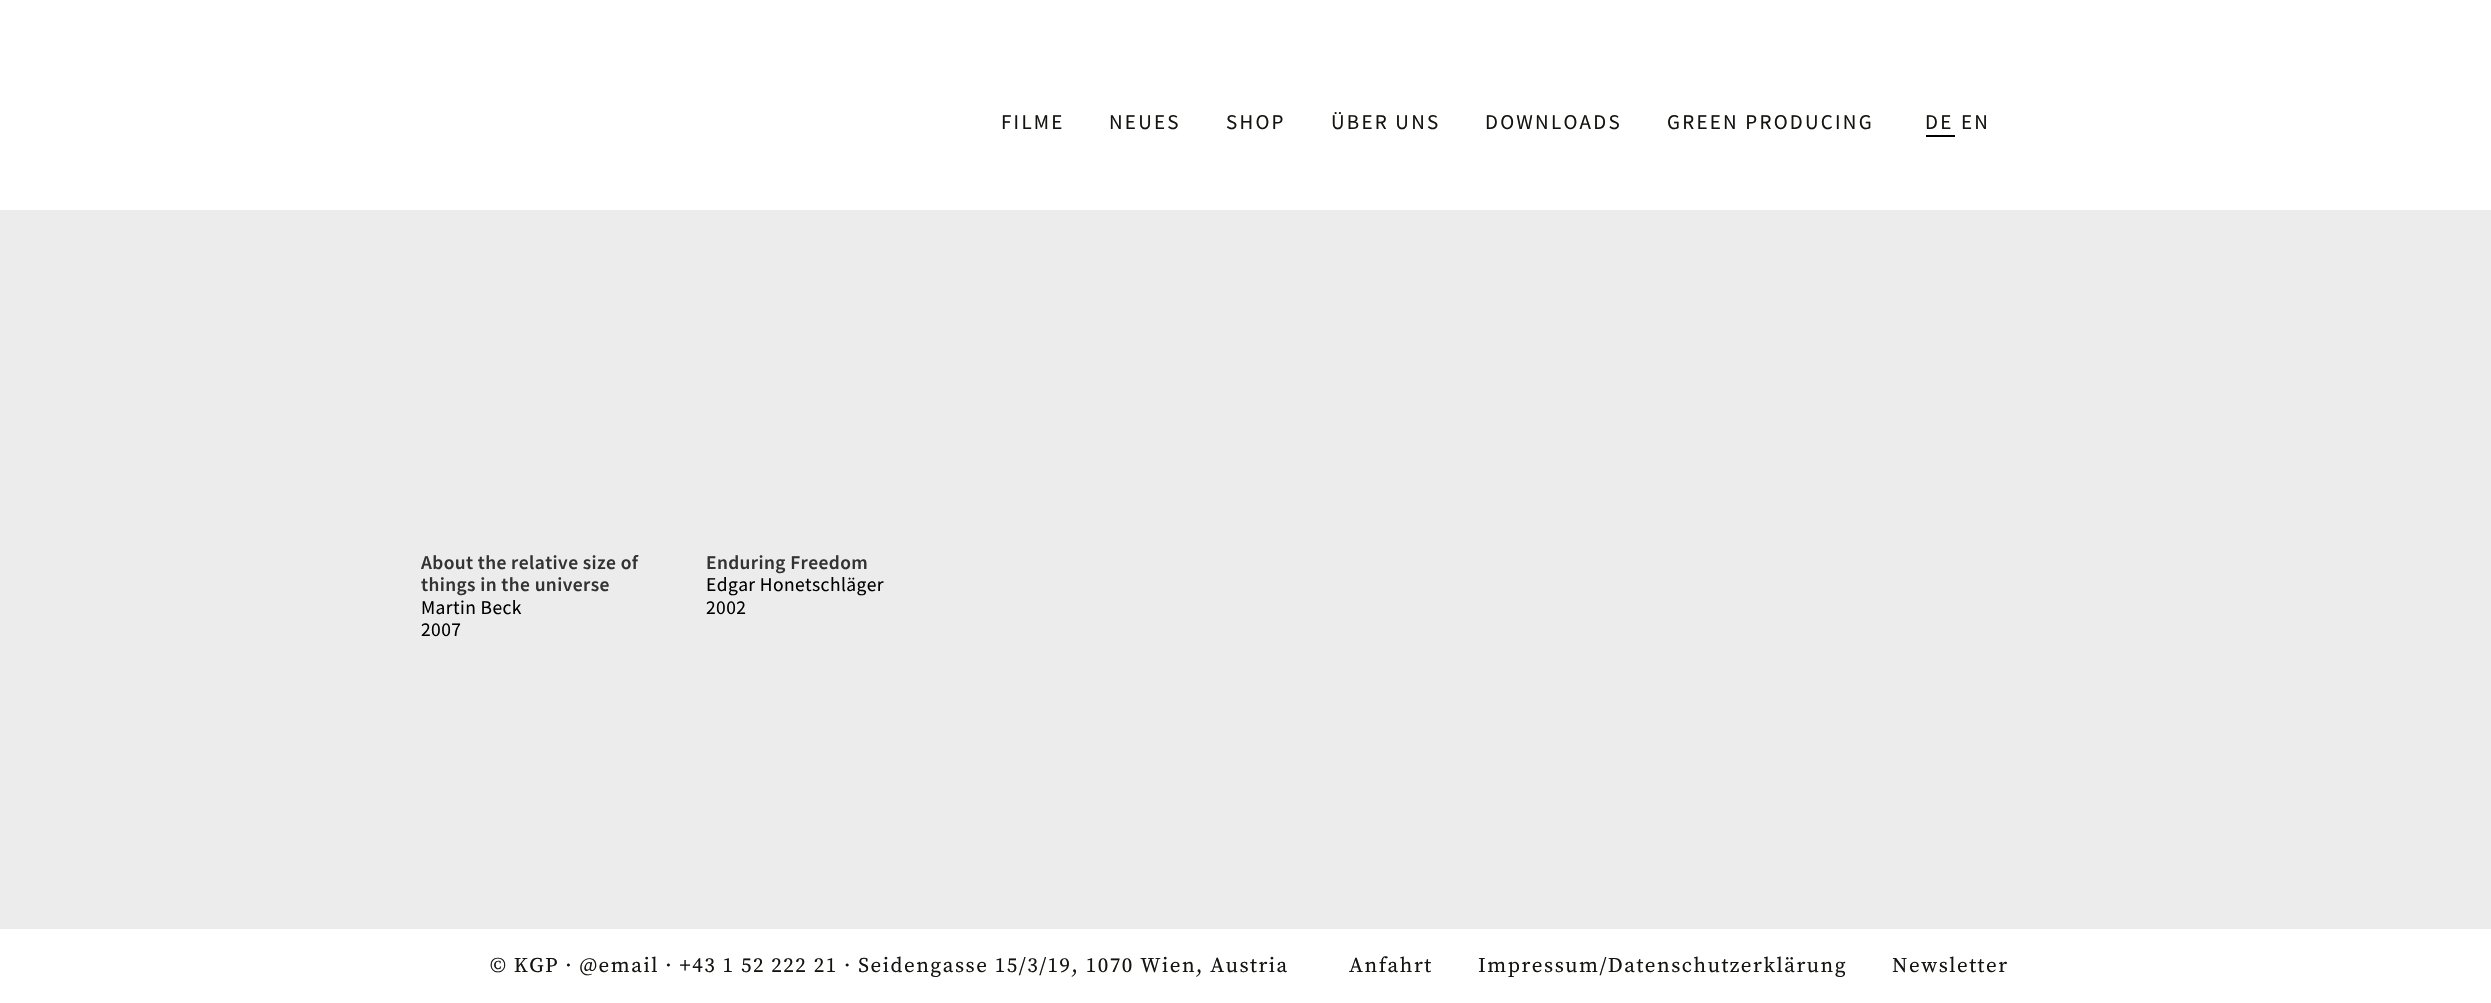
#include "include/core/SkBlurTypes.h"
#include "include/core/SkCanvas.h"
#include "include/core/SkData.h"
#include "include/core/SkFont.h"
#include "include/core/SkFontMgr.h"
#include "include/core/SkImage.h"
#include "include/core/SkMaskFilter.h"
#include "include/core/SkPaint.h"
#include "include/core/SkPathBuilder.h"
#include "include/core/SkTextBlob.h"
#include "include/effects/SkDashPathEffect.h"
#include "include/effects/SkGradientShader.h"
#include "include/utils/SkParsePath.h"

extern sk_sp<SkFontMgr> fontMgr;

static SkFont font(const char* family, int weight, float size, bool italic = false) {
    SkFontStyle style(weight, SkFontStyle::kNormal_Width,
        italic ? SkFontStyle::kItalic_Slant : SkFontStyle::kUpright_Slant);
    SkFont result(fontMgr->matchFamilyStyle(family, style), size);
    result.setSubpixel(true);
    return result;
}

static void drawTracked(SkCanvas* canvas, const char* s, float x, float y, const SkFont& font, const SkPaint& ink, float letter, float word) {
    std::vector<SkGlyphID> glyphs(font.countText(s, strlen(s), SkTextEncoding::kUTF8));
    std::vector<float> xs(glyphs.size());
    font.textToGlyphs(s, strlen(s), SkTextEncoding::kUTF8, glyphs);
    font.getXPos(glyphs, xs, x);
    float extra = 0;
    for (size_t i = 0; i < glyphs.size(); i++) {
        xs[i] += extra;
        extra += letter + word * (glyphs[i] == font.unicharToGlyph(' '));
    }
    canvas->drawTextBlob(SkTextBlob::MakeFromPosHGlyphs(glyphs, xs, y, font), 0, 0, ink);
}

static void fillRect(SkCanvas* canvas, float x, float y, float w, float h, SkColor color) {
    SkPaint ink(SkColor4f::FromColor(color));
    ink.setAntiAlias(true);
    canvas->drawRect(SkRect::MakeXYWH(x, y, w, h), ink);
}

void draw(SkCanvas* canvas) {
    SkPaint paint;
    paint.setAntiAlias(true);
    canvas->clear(0xFFECECEC);
    fillRect(canvas, 0, 0, 2491, 210, 0xFFFFFFFF);
    SkFont font1 = font("Source Sans Pro", 400, 21);
    paint.setColor(0xFF141411);
    drawTracked(canvas, "FILME", 1001, 129, font1, paint, 2.25f, 0);
    drawTracked(canvas, "NEUES", 1109, 129, font1, paint, 2.25f, 0);
    drawTracked(canvas, "SHOP", 1226, 129, font1, paint, 2.25f, 0);
    drawTracked(canvas, "ÜBER UNS", 1331, 129, font1, paint, 2.25f, 0);
    drawTracked(canvas, "DOWNLOADS", 1485, 129, font1, paint, 2.25f, 0);
    drawTracked(canvas, "GREEN PRODUCING", 1667, 129, font1, paint, 2.25f, 0);
    drawTracked(canvas, "DE", 1925, 129, font1, paint, 2.25f, 0);
    fillRect(canvas, 1926, 135, 29, 2, 0xFF000000);
    drawTracked(canvas, "EN", 1961, 129, font1, paint, 2.25f, 0);
    SkFont font2 = font("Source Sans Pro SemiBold", 600, 19.5f);
    paint.setColor(0xFF333333);
    drawTracked(canvas, "About the relative size of", 421, 569, font2, paint, 0.4f, 0);
    drawTracked(canvas, "things in the universe", 421, 591, font2, paint, 0.4f, 0);
    SkFont font3 = font("Source Sans Pro", 400, 19.5f);
    paint.setColor(0xFF000000);
    drawTracked(canvas, "Martin Beck", 421, 614, font3, paint, 0.4f, 0);
    drawTracked(canvas, "2007", 421, 636, font3, paint, 0.4f, 0);
    paint.setColor(0xFF333333);
    drawTracked(canvas, "Enduring Freedom", 706, 569, font2, paint, 0.4f, 0);
    paint.setColor(0xFF000000);
    drawTracked(canvas, "Edgar Honetschläger", 706, 591, font3, paint, 0.4f, 0);
    drawTracked(canvas, "2002", 706, 614, font3, paint, 0.4f, 0);
    fillRect(canvas, 0, 929, 2491, 74, 0xFFFFFFFF);
    SkFont font4 = font("Source Serif Pro", 400, 21);
    paint.setColor(0xFF141411);
    drawTracked(canvas, "© KGP · @email · +43 1 52 222 21 · Seidengasse 15/3/19, 1070 Wien, Austria", 490, 972, font4, paint, 1.5f, 0);
    drawTracked(canvas, "Anfahrt", 1349, 972, font4, paint, 1.5f, 0);
    drawTracked(canvas, "Impressum/Datenschutzerklärung", 1478, 972, font4, paint, 1.5f, 0);
    drawTracked(canvas, "Newsletter", 1892, 972, font4, paint, 1.5f, 0);
}
